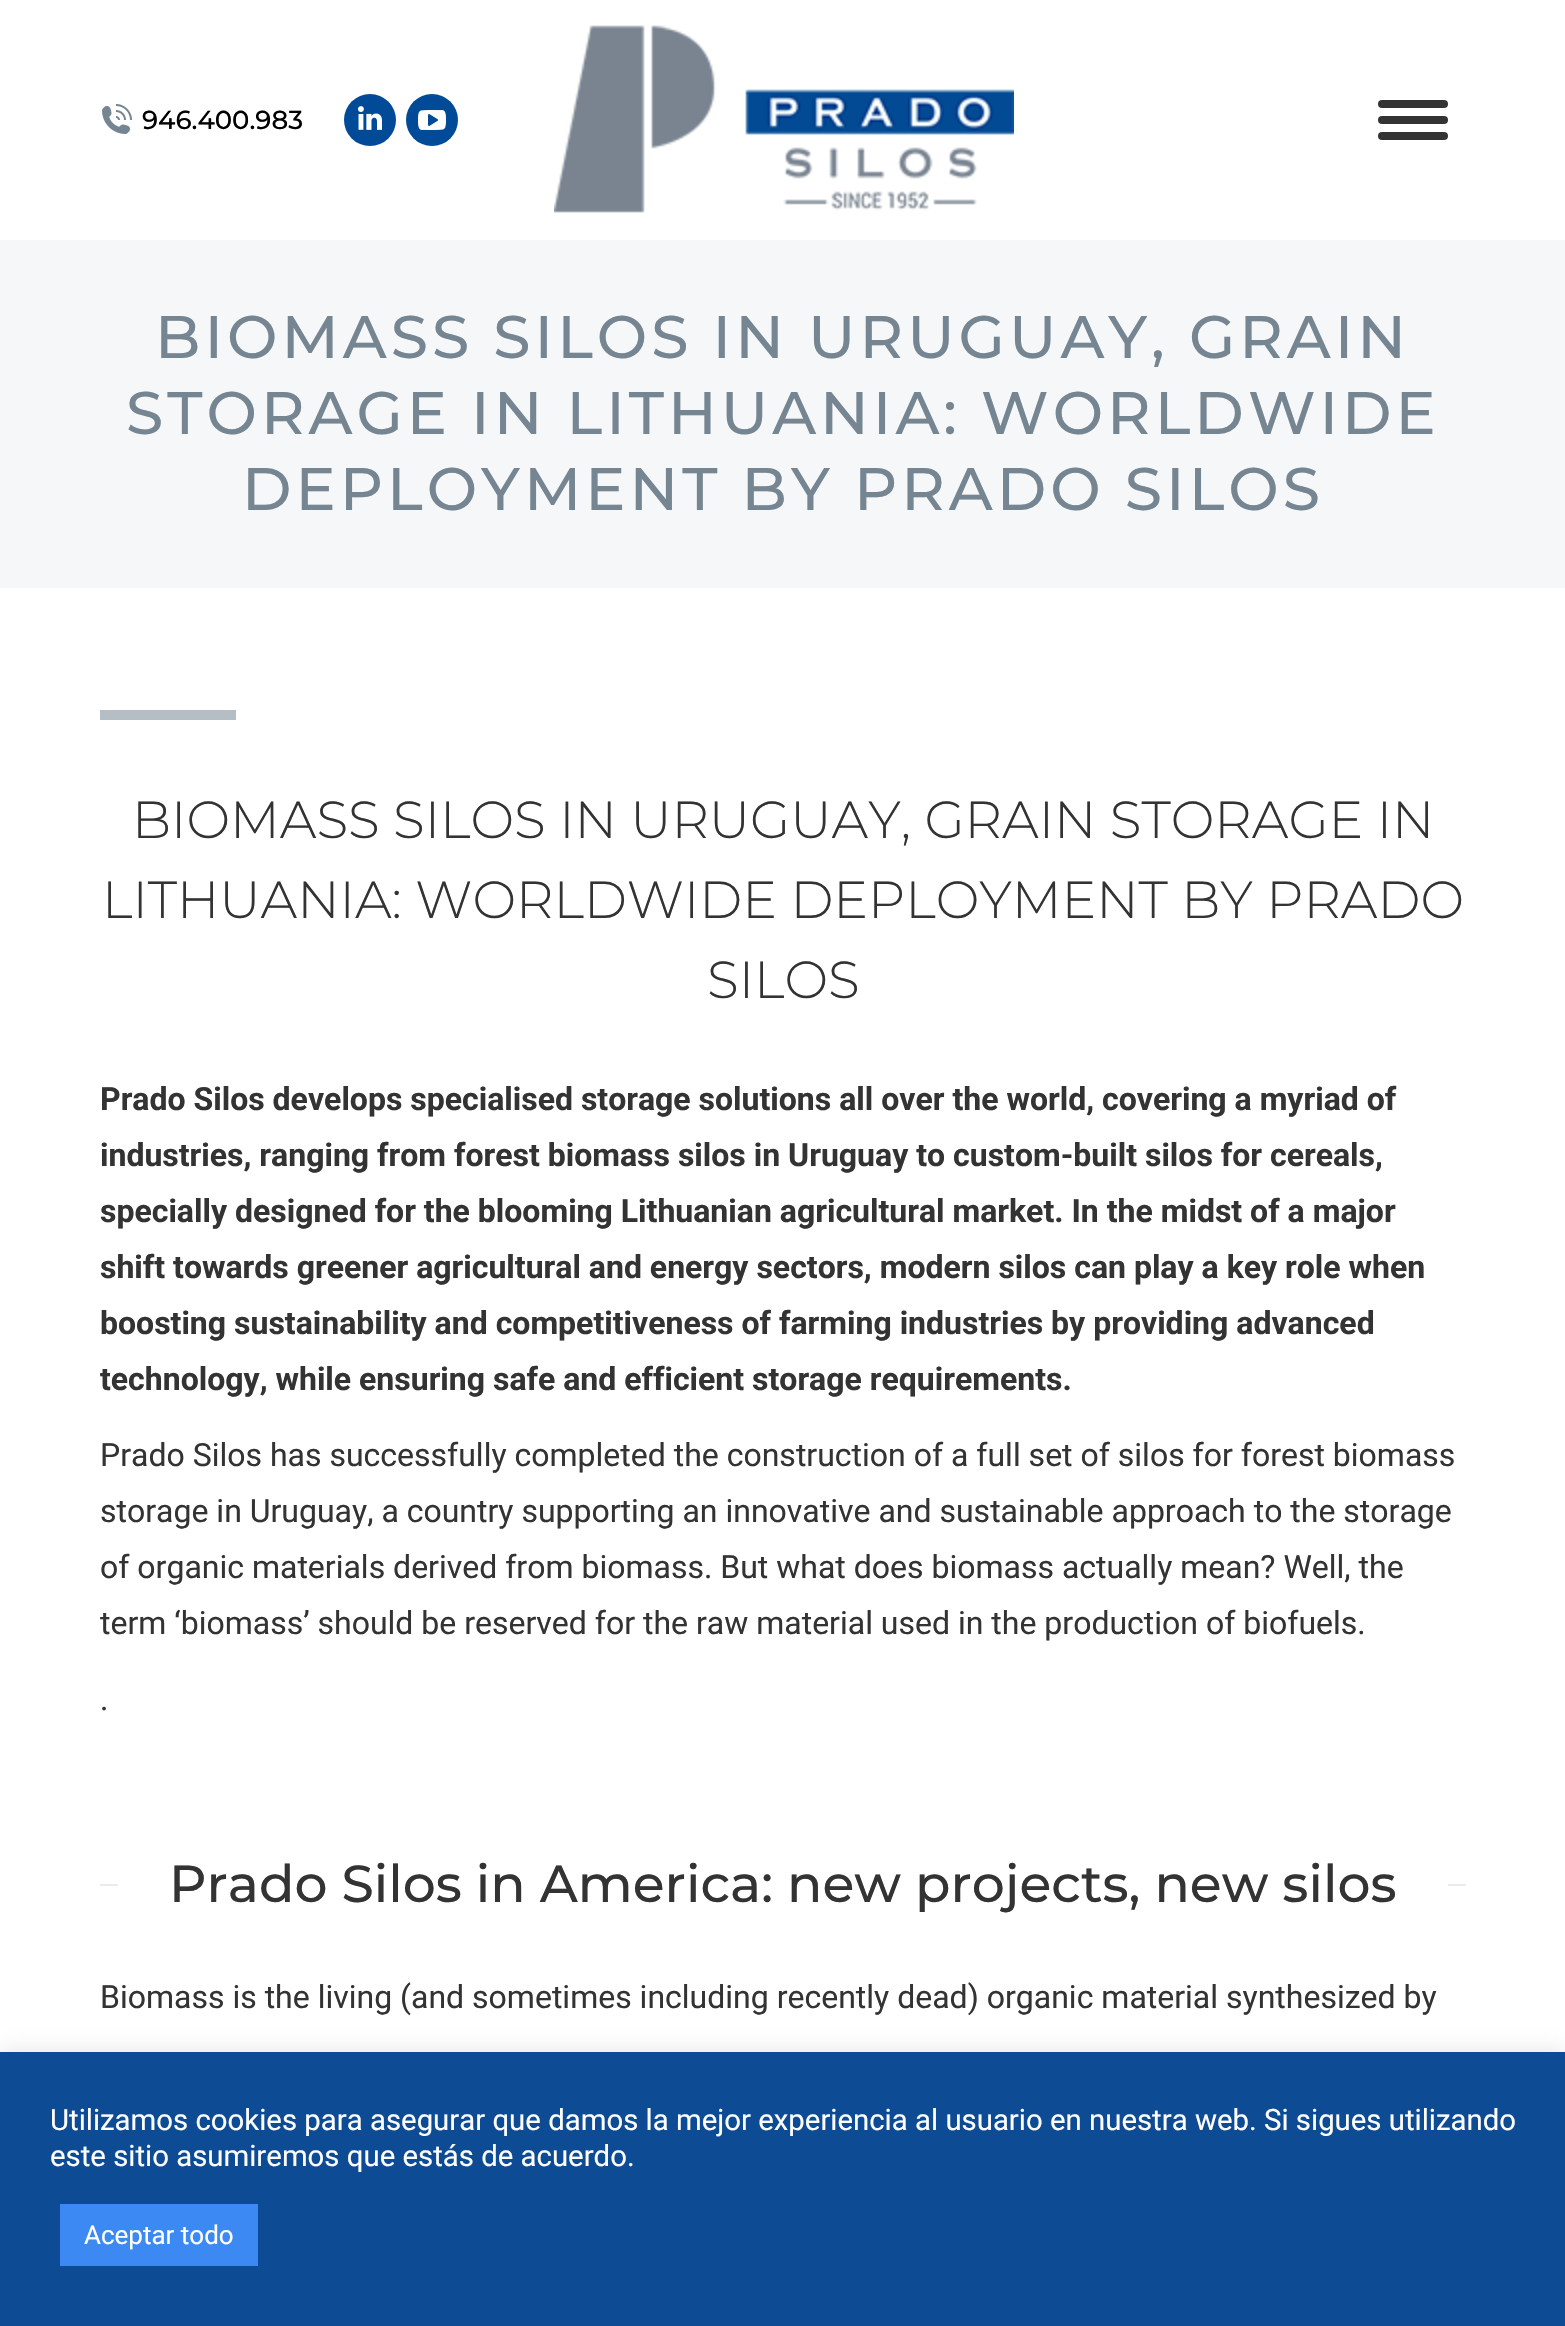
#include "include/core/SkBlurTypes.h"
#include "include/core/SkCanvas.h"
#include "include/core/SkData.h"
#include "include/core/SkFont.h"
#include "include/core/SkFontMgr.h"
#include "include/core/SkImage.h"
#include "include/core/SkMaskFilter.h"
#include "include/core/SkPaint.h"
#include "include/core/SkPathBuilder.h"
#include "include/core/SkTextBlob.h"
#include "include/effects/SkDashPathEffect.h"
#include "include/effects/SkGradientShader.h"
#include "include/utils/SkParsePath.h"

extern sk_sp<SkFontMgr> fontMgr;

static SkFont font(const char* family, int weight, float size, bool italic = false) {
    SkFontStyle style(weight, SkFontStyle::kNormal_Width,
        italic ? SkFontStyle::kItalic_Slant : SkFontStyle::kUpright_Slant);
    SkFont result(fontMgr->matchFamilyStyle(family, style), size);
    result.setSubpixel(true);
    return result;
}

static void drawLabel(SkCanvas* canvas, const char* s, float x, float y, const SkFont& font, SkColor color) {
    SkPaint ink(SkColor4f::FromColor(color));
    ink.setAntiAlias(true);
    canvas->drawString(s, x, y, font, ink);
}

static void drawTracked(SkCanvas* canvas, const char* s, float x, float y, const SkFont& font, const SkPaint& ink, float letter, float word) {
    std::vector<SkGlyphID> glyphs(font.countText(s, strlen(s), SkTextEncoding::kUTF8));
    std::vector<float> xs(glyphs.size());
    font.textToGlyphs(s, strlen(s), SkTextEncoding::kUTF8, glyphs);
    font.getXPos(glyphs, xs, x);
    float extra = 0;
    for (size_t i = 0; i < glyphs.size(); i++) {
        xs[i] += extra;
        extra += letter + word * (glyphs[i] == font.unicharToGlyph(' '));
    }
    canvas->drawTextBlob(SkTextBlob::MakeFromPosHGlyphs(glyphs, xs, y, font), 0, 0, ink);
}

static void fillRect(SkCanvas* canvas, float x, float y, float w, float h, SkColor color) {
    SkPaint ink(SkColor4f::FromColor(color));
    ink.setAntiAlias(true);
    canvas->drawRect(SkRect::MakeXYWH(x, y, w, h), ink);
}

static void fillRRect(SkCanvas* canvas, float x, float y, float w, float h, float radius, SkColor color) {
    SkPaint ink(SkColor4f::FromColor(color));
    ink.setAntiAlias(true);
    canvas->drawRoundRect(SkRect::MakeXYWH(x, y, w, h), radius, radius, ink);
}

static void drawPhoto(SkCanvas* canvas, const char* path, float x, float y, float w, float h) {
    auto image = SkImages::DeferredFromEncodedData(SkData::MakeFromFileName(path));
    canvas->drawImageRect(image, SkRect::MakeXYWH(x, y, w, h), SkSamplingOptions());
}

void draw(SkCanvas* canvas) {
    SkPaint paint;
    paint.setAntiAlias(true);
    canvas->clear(0xFFFFFFFF);
    drawPhoto(canvas, "assets/img1.png", 102, 104, 30, 30);
    SkFont font1 = font("Montserrat", 500, 26);
    drawLabel(canvas, "946.400.983", 142, 129, font1, 0xFF000000);
    paint.setColor(0xFF004A98);
    canvas->drawCircle(370, 120, 26, paint);
    drawPhoto(canvas, "assets/img2.png", 358, 106, 24, 24);
    canvas->drawCircle(432, 120, 26, paint);
    drawPhoto(canvas, "assets/img3.png", 418, 110, 28, 20);
    drawPhoto(canvas, "assets/img4.png", 554, 25, 460, 188);
    fillRRect(canvas, 1378, 100, 70, 8, 4, 0xFF333333);
    fillRRect(canvas, 1378, 116, 70, 8, 4, 0xFF333333);
    fillRRect(canvas, 1378, 132, 70, 8, 4, 0xFF333333);
    fillRect(canvas, 0, 240, 1565, 348, 0xFFF6F7F8);
    SkFont font2 = font("Montserrat", 500, 60);
    paint.setColor(0xFF758592);
    drawTracked(canvas, "BIOMASS SILOS IN URUGUAY, GRAIN", 155, 358, font2, paint, 4, 0);
    drawTracked(canvas, "STORAGE IN LITHUANIA: WORLDWIDE", 126, 434, font2, paint, 4, 0);
    drawTracked(canvas, "DEPLOYMENT BY PRADO SILOS", 242, 510, font2, paint, 4, 0);
    fillRect(canvas, 100, 710, 136, 10, 0xFFB6BEC5);
    SkFont font3 = font("Montserrat", 300, 52);
    drawLabel(canvas, "BIOMASS SILOS IN URUGUAY, GRAIN STORAGE IN", 132, 838, font3, 0xFF333333);
    drawLabel(canvas, "LITHUANIA: WORLDWIDE DEPLOYMENT BY PRADO", 102, 918, font3, 0xFF333333);
    drawLabel(canvas, "SILOS", 707, 998, font3, 0xFF333333);
    SkFont font4 = font("Roboto", 700, 32);
    drawLabel(canvas, "Prado Silos develops specialised storage solutions all over the world, covering a myriad of", 100, 1110, font4, 0xFF333333);
    drawLabel(canvas, "industries, ranging from forest biomass silos in Uruguay to custom-built silos for cereals,", 100, 1166, font4, 0xFF333333);
    drawLabel(canvas, "specially designed for the blooming Lithuanian agricultural market. In the midst of a major", 100, 1222, font4, 0xFF333333);
    drawLabel(canvas, "shift towards greener agricultural and energy sectors, modern silos can play a key role when", 100, 1278, font4, 0xFF333333);
    drawLabel(canvas, "boosting sustainability and competitiveness of farming industries by providing advanced", 100, 1334, font4, 0xFF333333);
    drawLabel(canvas, "technology, while ensuring safe and efficient storage requirements.", 100, 1390, font4, 0xFF333333);
    SkFont font5 = font("Roboto", 400, 32);
    drawLabel(canvas, "Prado Silos has successfully completed the construction of a full set of silos for forest biomass", 100, 1466, font5, 0xFF333333);
    drawLabel(canvas, "storage in Uruguay, a country supporting an innovative and sustainable approach to the storage", 100, 1522, font5, 0xFF333333);
    drawLabel(canvas, "of organic materials derived from biomass. But what does biomass actually mean? Well, the", 100, 1578, font5, 0xFF333333);
    drawLabel(canvas, "term ‘biomass’ should be reserved for the raw material used in the production of biofuels.", 100, 1634, font5, 0xFF333333);
    drawLabel(canvas, ".", 100, 1710, font5, 0xFF333333);
    fillRect(canvas, 100, 1884, 18, 2, 0xFFEBEBEB);
    SkFont font6 = font("Montserrat", 500, 52);
    drawLabel(canvas, "Prado Silos in America: new projects, new silos", 169, 1902, font6, 0xFF333333);
    fillRect(canvas, 1448, 1884, 18, 2, 0xFFEBEBEB);
    drawLabel(canvas, "Biomass is the living (and sometimes including recently dead) organic material synthesized by", 100, 2008, font5, 0xFF333333);
    paint.setColor(0x4DACABAB);
    paint.setMaskFilter(SkMaskFilter::MakeBlur(kNormal_SkBlurStyle, 10));
    canvas->drawRect(SkRect::MakeXYWH(0, 2050, 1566, 274), paint);
    paint.setMaskFilter(nullptr);
    fillRect(canvas, 0, 2052, 1565, 274, 0xFF0D4B94);
    SkFont font7 = font("Roboto", 400, 29.35f);
    drawLabel(canvas, "Utilizamos cookies para asegurar que damos la mejor experiencia al usuario en nuestra web. Si sigues utilizando", 50, 2130, font7, 0xFFFFFFFF);
    drawLabel(canvas, "este sitio asumiremos que estás de acuerdo.", 50, 2166, font7, 0xFFFFFFFF);
    fillRect(canvas, 60, 2204, 198, 62, 0xFF3D89F4);
    SkFont font8 = font("Roboto", 400, 26);
    drawLabel(canvas, "Aceptar todo", 84, 2244, font8, 0xFFFFFFFF);
}
